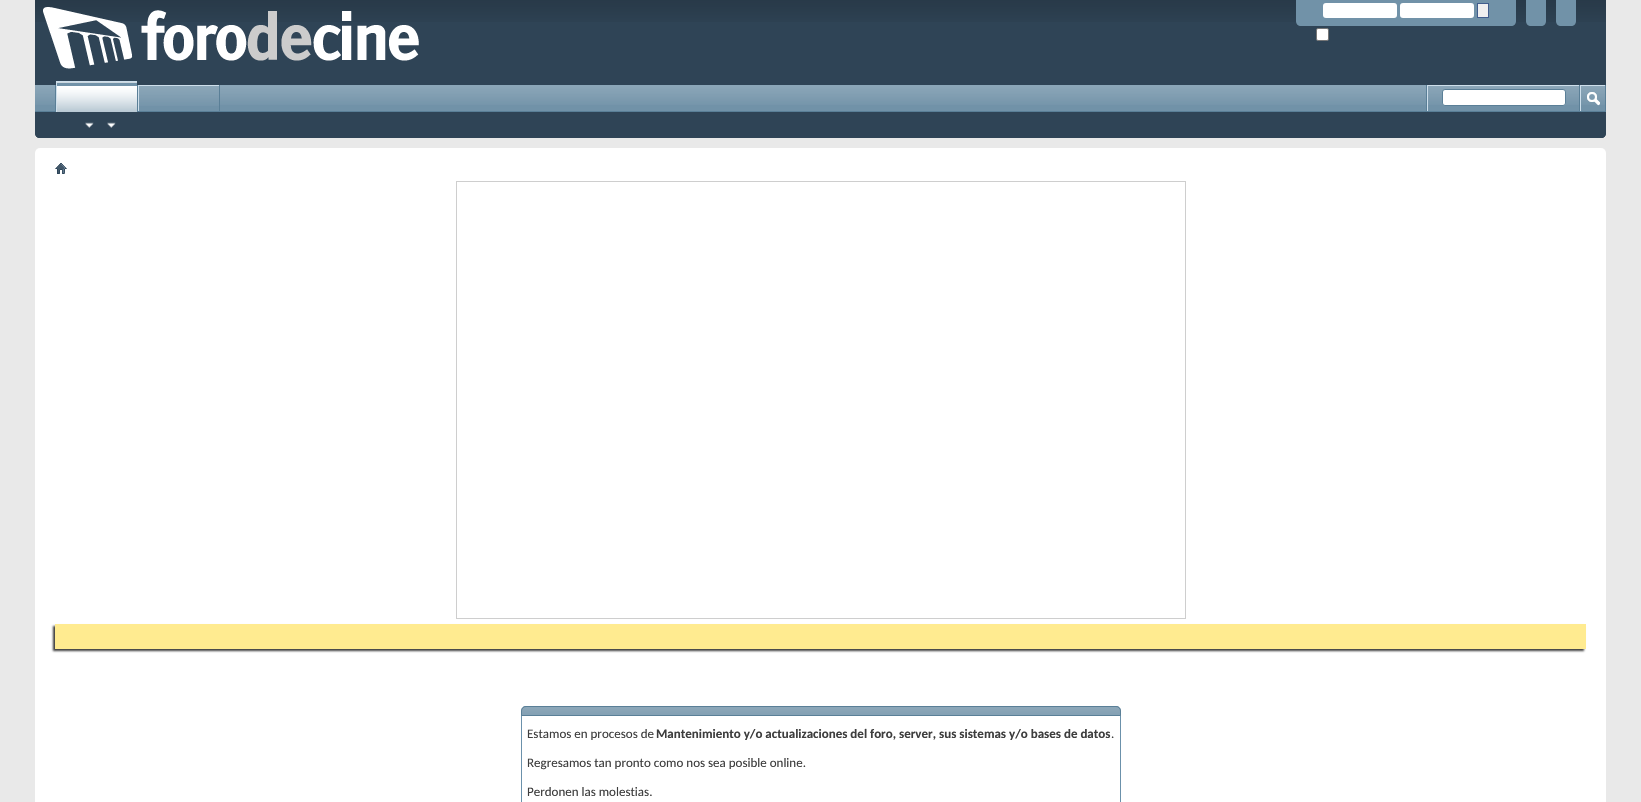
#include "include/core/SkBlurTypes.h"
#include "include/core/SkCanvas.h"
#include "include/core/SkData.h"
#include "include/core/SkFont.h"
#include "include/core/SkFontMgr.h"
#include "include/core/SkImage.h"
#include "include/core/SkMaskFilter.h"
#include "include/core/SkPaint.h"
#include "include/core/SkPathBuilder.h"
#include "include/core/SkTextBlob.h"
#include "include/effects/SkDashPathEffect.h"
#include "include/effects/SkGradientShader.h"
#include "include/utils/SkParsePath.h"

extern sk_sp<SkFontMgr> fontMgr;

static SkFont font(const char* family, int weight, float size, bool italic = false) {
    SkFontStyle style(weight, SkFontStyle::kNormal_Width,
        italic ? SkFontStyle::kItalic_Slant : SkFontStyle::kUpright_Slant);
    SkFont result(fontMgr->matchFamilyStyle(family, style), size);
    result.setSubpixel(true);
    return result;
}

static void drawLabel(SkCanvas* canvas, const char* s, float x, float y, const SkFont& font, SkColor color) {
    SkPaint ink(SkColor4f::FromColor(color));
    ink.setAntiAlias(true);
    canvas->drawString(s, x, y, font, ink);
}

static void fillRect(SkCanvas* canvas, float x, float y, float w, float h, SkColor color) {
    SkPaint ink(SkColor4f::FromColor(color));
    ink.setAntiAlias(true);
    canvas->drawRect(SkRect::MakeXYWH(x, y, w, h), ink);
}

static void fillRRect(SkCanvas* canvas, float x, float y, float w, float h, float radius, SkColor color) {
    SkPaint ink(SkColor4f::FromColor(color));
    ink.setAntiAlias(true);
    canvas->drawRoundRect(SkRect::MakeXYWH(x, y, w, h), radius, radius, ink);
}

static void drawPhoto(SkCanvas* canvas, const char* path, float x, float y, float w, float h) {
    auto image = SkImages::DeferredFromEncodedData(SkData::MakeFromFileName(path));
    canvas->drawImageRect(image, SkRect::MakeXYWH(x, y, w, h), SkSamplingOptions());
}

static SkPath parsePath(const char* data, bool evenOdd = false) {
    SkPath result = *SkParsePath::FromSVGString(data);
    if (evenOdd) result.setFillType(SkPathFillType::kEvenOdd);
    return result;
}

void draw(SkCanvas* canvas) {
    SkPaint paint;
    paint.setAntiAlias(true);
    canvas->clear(0xFFE9E9E9);
    paint.setColor(0xFF2F4456);
    canvas->drawPath(parsePath("M35 0H1606V133C1606 136 1604 138 1601 138H40C37 138 35 136 35 133Z"), paint);
    drawPhoto(canvas, "assets/img1.png", 35, 0, 1571, 22);
    drawPhoto(canvas, "assets/img2.png", 43, 7, 376, 62);
    paint.setColor(0xFF7192A8);
    canvas->drawPath(parsePath("M1296 0H1516V21C1516 24 1514 26 1511 26H1301C1298 26 1296 24 1296 21Z"), paint);
    fillRRect(canvas, 1323, 3, 74, 15, 3, 0xFFFFFFFF);
    fillRRect(canvas, 1400, 3, 74, 15, 3, 0xFFFFFFFF);
    paint.setColor(0xFFEFEFEF);
    canvas->drawRect(SkRect::MakeXYWH(1477.5f, 3.5f, 11, 14), paint);
    paint.setStroke(true);
    paint.setStrokeWidth(1);
    paint.setColor(0xFF415D8D);
    canvas->drawRect(SkRect::MakeXYWH(1477.5f, 3.5f, 11, 14), paint);
    paint.setStroke(false);
    paint.setColor(0xFFFFFFFF);
    canvas->drawRoundRect(SkRect::MakeXYWH(1316.5f, 28.5f, 12, 12), 1.5f, 1.5f, paint);
    paint.setStroke(true);
    paint.setColor(0xFF767676);
    canvas->drawRoundRect(SkRect::MakeXYWH(1316.5f, 28.5f, 12, 12), 1.5f, 1.5f, paint);
    paint.setStroke(false);
    paint.setColor(0xFF7192A8);
    canvas->drawPath(parsePath("M1526 0H1546V21C1546 24 1544 26 1541 26H1531C1528 26 1526 24 1526 21Z"), paint);
    canvas->drawPath(parsePath("M1556 0H1576V21C1576 24 1574 26 1571 26H1561C1558 26 1556 24 1556 21Z"), paint);
    paint.setColor(0xFF2F4456);
    canvas->drawPath(parsePath("M35 85H1606V133C1606 136 1604 138 1601 138H40C37 138 35 136 35 133Z"), paint);
    fillRect(canvas, 35, 85, 1570, 26, 0xFF7192A8);
    drawPhoto(canvas, "assets/img3.png", 35, 85, 1570, 20);
    fillRect(canvas, 137, 85, 1, 26, 0xFF5A7F97);
    fillRect(canvas, 55, 85, 1, 26, 0xFF5A7F97);
    fillRect(canvas, 219, 85, 1, 27, 0xFF5A7F97);
    fillRect(canvas, 138, 85, 81, 1, 0xFFCEDFEB);
    fillRect(canvas, 138, 85, 1, 27, 0xFFCEDFEB);
    fillRect(canvas, 35, 111, 1571, 1, 0xFF5A7F97);
    fillRect(canvas, 57, 82, 80, 30, 0xFF7192A8);
    drawPhoto(canvas, "assets/img4.png", 57, 82, 80, 30);
    fillRect(canvas, 56, 81, 81, 1, 0xFFCEDFEB);
    fillRect(canvas, 56, 81, 1, 31, 0xFFCEDFEB);
    drawPhoto(canvas, "assets/img5.png", 85, 122, 9, 6);
    drawPhoto(canvas, "assets/img5.png", 107, 122, 9, 6);
    fillRect(canvas, 139, 86, 80, 19, 0xFF7192A8);
    drawPhoto(canvas, "assets/img6.png", 139, 86, 80, 20);
    fillRect(canvas, 1426, 85, 1, 26, 0xFF5A7F97);
    fillRect(canvas, 1427, 85, 152, 1, 0xFFCEDFEB);
    fillRect(canvas, 1427, 85, 1, 26, 0xFFCEDFEB);
    paint.setColor(0xFFFFFFFF);
    canvas->drawRoundRect(SkRect::MakeXYWH(1442.5f, 89.5f, 123, 16), 2.5f, 2.5f, paint);
    paint.setStroke(true);
    paint.setColor(0xFF5A7F97);
    canvas->drawRoundRect(SkRect::MakeXYWH(1442.5f, 89.5f, 123, 16), 2.5f, 2.5f, paint);
    fillRect(canvas, 1605, 85, 1, 26, 0xFF5A7F97);
    fillRect(canvas, 1579, 85, 1, 26, 0xFF5A7F97);
    fillRect(canvas, 1580, 85, 25, 1, 0xFFCEDFEB);
    fillRect(canvas, 1580, 85, 1, 26, 0xFFCEDFEB);
    drawPhoto(canvas, "assets/img7.png", 1587, 92, 13, 14);
    fillRRect(canvas, 35, 148, 1571, 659, 5, 0xFFFFFFFF);
    drawPhoto(canvas, "assets/img8.png", 55, 163, 12, 11);
    paint.setColor(0xFFCECECE);
    canvas->drawRect(SkRect::MakeXYWH(456.5f, 181.5f, 729, 437), paint);
    paint.setStroke(false);
    paint.setColor(0xFF3E3E3E);
    paint.setMaskFilter(SkMaskFilter::MakeBlur(kNormal_SkBlurStyle, 1));
    canvas->drawRect(SkRect::MakeXYWH(53, 626, 1531, 25), paint);
    paint.setMaskFilter(nullptr);
    fillRect(canvas, 55, 624, 1531, 25, 0xFFFFEB90);
    paint.setColor(0xFF7192A8);
    canvas->drawPath(parsePath("M526 706H1116C1119 706 1121 708 1121 711V716H521V711C521 708 523 706 526 706Z"), paint);
    drawPhoto(canvas, "assets/img9.png", 521, 707, 600, 8);
    paint.setStroke(true);
    paint.setColor(0xFF5A7F97);
    canvas->drawPath(parsePath("M526 706.5H1116C1118.5 706.5 1120.5 708.5 1120.5 711V715.5H521.5V711C521.5 708.5 523.5 706.5 526 706.5Z"), paint);
    fillRect(canvas, 1120, 716, 1, 86, 0xFF6B91AB);
    fillRect(canvas, 521, 716, 1, 86, 0xFF6B91AB);
    SkFont font1 = font("Carlito", 400, 13);
    drawLabel(canvas, "Estamos en procesos de", 527, 738, font1, 0xFF3E3E3E);
    SkFont font2 = font("Carlito", 700, 13);
    drawLabel(canvas, "Mantenimiento y/o actualizaciones del foro, server, sus sistemas y/o bases de datos", 656, 738, font2, 0xFF3E3E3E);
    drawLabel(canvas, ".", 1111, 738, font1, 0xFF3E3E3E);
    drawLabel(canvas, "Regresamos tan pronto como nos sea posible online.", 527, 767, font1, 0xFF3E3E3E);
    drawLabel(canvas, "Perdonen las molestias.", 527, 796, font1, 0xFF3E3E3E);
}
